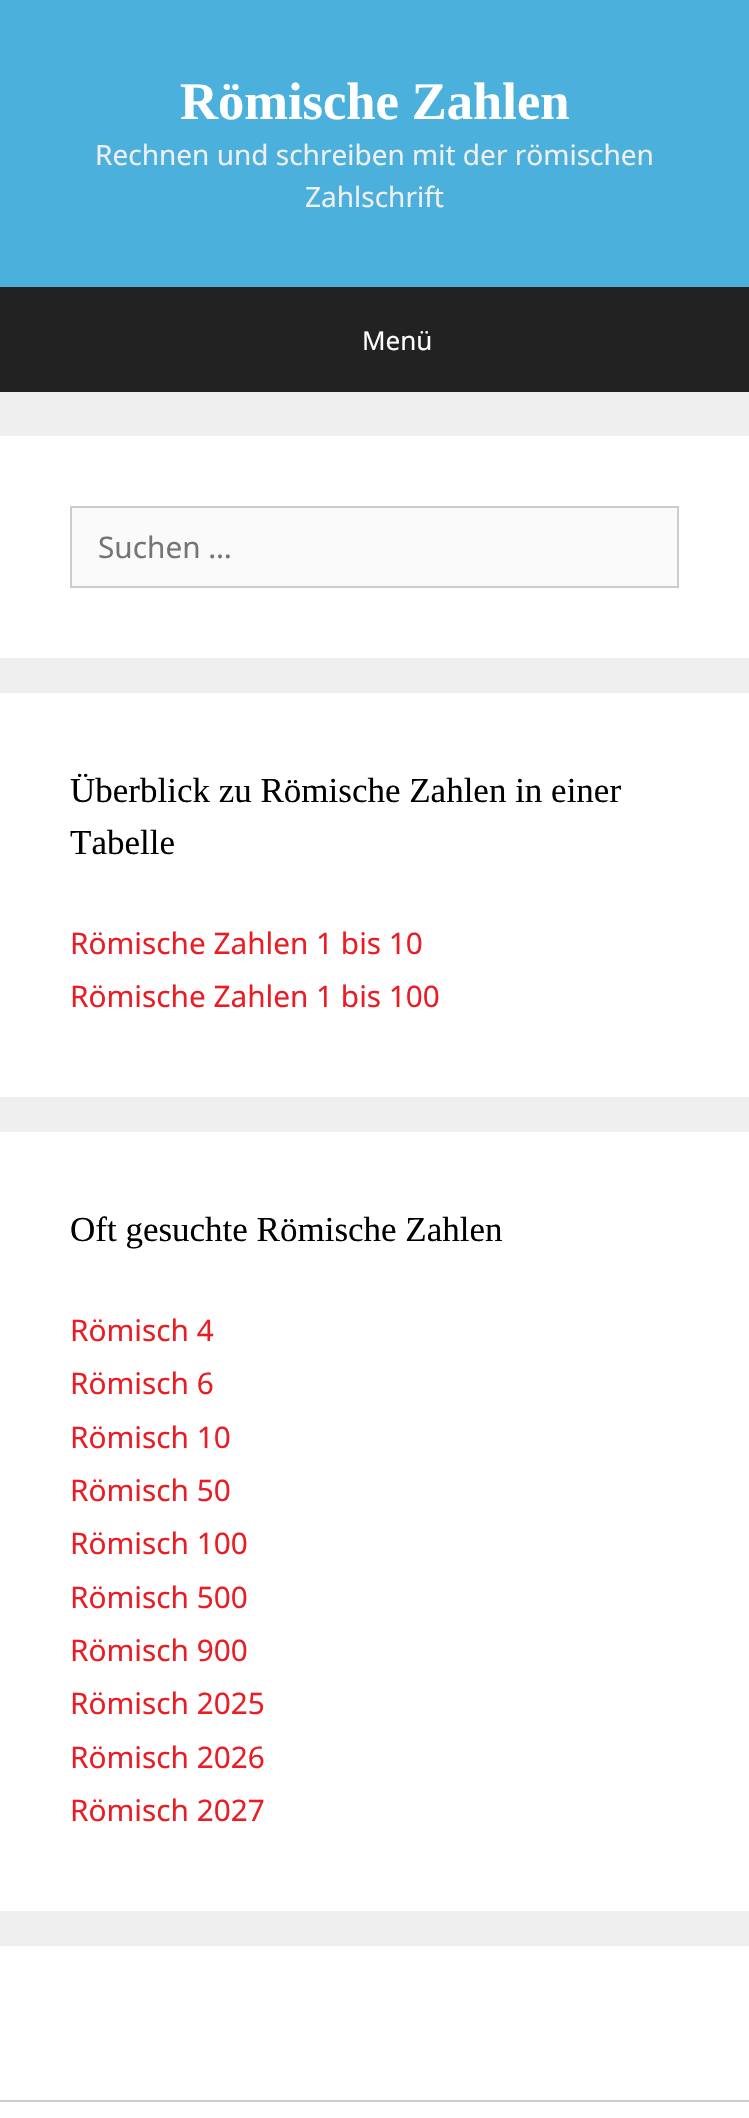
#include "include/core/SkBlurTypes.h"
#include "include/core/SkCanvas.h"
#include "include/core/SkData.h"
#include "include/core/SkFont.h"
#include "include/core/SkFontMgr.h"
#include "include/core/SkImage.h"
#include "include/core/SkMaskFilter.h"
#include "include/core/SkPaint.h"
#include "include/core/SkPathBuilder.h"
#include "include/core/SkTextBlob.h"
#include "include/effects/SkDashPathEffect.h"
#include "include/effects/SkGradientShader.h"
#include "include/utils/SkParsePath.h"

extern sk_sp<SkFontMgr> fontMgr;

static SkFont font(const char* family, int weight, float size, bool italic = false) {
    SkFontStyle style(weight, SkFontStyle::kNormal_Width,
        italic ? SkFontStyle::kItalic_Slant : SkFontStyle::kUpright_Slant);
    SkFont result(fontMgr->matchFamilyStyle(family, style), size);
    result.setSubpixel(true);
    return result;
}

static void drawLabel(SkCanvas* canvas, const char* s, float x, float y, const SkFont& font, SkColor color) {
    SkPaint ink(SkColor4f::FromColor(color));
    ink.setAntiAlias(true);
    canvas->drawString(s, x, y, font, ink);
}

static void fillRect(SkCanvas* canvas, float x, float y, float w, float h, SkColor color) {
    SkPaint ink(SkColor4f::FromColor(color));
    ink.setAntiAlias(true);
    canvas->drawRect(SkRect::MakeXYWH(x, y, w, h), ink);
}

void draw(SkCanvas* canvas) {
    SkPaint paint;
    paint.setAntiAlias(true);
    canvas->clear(0xFFEFEFEF);
    fillRect(canvas, 0, 0, 749, 287, 0xFF4CB0DC);
    SkFont font1 = font("Liberation Serif", 700, 52.5f);
    drawLabel(canvas, "Römische Zahlen", 180, 119, font1, 0xFFFFFFFF);
    SkFont font2 = font("Noto Sans", 400, 28);
    drawLabel(canvas, "Rechnen und schreiben mit der römischen", 95, 165, font2, 0xFFEFEFEF);
    drawLabel(canvas, "Zahlschrift", 305, 207, font2, 0xFFEFEFEF);
    fillRect(canvas, 0, 287, 749, 105, 0xFF222222);
    SkFont font3 = font("Noto Sans", 400, 26);
    drawLabel(canvas, "Menü", 362, 350, font3, 0xFFFFFFFF);
    fillRect(canvas, 0, 436, 749, 222, 0xFFFFFFFF);
    paint.setColor(0xFFFAFAFA);
    canvas->drawRect(SkRect::MakeXYWH(71, 507, 607, 80), paint);
    paint.setStroke(true);
    paint.setStrokeWidth(2);
    paint.setColor(0xFFCCCCCC);
    canvas->drawRect(SkRect::MakeXYWH(71, 507, 607, 80), paint);
    SkFont font4 = font("Noto Sans", 400, 29.75f);
    drawLabel(canvas, "Suchen …", 98, 558, font4, 0xFF757575);
    fillRect(canvas, 0, 693, 749, 404, 0xFFFFFFFF);
    SkFont font5 = font("Liberation Serif", 400, 35);
    drawLabel(canvas, "Überblick zu Römische Zahlen in einer", 70, 802, font5, 0xFF000000);
    drawLabel(canvas, "Tabelle", 70, 854, font5, 0xFF000000);
    drawLabel(canvas, "Römische Zahlen 1 bis 10", 70, 954, font4, 0xFFEA1D25);
    drawLabel(canvas, "Römische Zahlen 1 bis 100", 70, 1007, font4, 0xFFEA1D25);
    fillRect(canvas, 0, 1132, 749, 779, 0xFFFFFFFF);
    drawLabel(canvas, "Oft gesuchte Römische Zahlen", 70, 1241, font5, 0xFF000000);
    drawLabel(canvas, "Römisch 4", 70, 1341, font4, 0xFFEA1D25);
    drawLabel(canvas, "Römisch 6", 70, 1394, font4, 0xFFEA1D25);
    drawLabel(canvas, "Römisch 10", 70, 1448, font4, 0xFFEA1D25);
    drawLabel(canvas, "Römisch 50", 70, 1501, font4, 0xFFEA1D25);
    drawLabel(canvas, "Römisch 100", 70, 1554, font4, 0xFFEA1D25);
    drawLabel(canvas, "Römisch 500", 70, 1608, font4, 0xFFEA1D25);
    drawLabel(canvas, "Römisch 900", 70, 1661, font4, 0xFFEA1D25);
    drawLabel(canvas, "Römisch 2025", 70, 1714, font4, 0xFFEA1D25);
    drawLabel(canvas, "Römisch 2026", 70, 1768, font4, 0xFFEA1D25);
    drawLabel(canvas, "Römisch 2027", 70, 1821, font4, 0xFFEA1D25);
    fillRect(canvas, 0, 1946, 749, 172, 0xFFFFFFFF);
    fillRect(canvas, 0, 2100, 749, 2, 0xFFCCCCCC);
}
